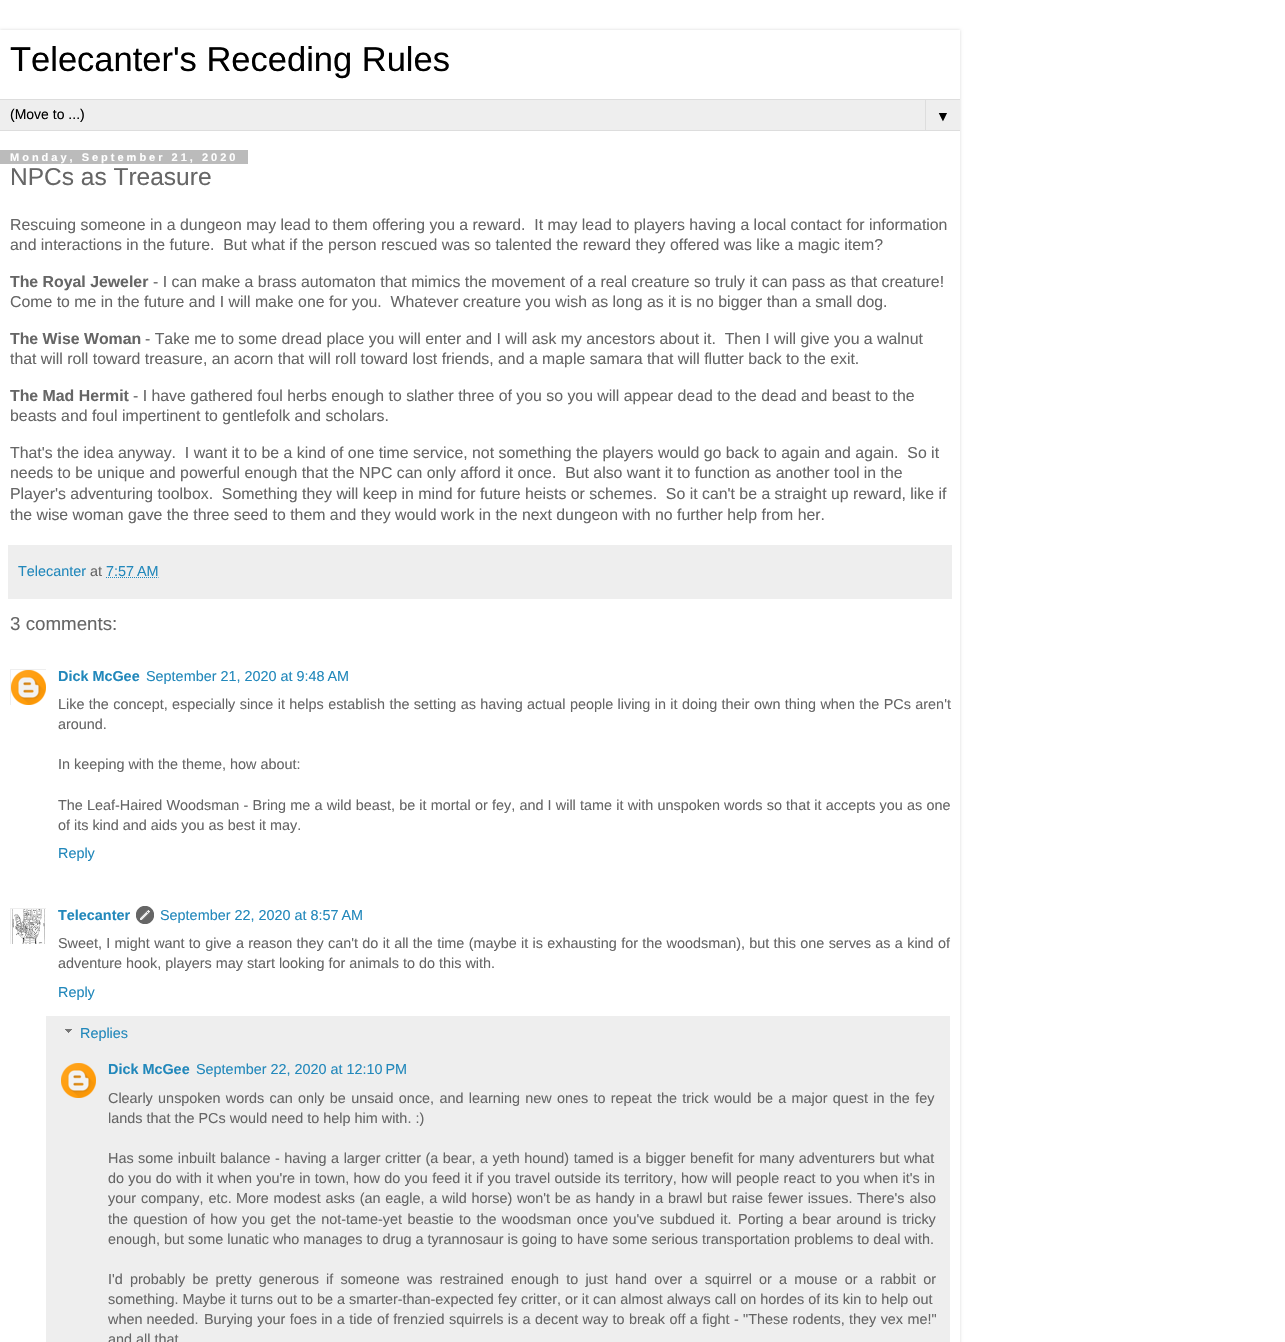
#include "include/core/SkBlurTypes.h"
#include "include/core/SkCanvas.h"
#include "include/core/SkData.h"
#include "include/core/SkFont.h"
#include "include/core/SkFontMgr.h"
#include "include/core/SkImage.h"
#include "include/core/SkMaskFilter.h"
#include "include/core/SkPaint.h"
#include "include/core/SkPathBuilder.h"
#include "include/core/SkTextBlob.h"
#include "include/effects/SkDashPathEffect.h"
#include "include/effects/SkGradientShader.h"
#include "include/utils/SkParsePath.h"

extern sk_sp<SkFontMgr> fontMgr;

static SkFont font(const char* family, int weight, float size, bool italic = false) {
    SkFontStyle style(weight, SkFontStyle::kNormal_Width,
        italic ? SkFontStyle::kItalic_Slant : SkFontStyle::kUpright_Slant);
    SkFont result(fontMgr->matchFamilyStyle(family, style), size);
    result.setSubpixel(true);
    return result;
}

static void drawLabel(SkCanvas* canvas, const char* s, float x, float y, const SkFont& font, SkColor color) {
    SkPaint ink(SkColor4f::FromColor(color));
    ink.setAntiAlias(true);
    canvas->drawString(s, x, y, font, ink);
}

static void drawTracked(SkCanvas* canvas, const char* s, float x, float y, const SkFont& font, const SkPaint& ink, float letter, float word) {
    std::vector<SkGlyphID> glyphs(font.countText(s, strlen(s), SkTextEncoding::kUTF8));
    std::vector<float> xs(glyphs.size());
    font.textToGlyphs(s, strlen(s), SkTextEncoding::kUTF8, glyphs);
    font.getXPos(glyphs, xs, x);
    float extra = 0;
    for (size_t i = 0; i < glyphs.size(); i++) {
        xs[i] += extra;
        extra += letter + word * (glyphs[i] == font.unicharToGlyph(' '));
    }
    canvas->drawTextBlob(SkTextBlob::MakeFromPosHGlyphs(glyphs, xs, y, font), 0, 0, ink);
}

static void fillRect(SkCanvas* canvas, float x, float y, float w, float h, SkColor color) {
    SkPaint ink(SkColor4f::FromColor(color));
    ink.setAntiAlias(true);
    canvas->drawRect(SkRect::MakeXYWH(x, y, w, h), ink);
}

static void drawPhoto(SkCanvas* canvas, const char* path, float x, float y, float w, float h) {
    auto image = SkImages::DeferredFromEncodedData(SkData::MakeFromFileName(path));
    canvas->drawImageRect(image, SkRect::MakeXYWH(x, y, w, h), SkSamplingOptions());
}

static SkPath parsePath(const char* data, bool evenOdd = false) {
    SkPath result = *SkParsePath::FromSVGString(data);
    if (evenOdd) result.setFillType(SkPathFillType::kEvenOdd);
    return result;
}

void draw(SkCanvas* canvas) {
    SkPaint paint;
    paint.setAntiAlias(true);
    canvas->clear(0xFFFFFFFF);
    canvas->save();
    canvas->clipPath(parsePath("M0 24H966V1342H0ZM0 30H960V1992H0Z", true), true);
    paint.setColor(0x26000000);
    paint.setMaskFilter(SkMaskFilter::MakeBlur(kNormal_SkBlurStyle, 1.5f));
    canvas->drawRect(SkRect::MakeXYWH(0, 30, 960, 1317), paint);
    paint.setMaskFilter(nullptr);
    canvas->restore();
    SkFont font1 = font("Liberation Sans", 400, 34.5f);
    drawLabel(canvas, "Telecanter's Receding Rules", 10, 71, font1, 0xFF000000);
    fillRect(canvas, 0, 100, 960, 30, 0xFFEEEEEE);
    fillRect(canvas, 0, 99, 960, 1, 0xFFDDDDDD);
    fillRect(canvas, 0, 130, 960, 1, 0xFFDDDDDD);
    SkFont font2 = font("Liberation Sans", 400, 14);
    drawLabel(canvas, "(Move to ...)", 10, 119, font2, 0xFF000000);
    fillRect(canvas, 925, 99, 1, 32, 0xFFDDDDDD);
    drawLabel(canvas, "▼", 936, 121, font2, 0xFF000000);
    fillRect(canvas, 0, 150, 248, 14, 0xFFBBBBBB);
    SkFont font3 = font("Liberation Sans", 700, 11);
    paint.setColor(0xFFFFFFFF);
    drawTracked(canvas, "Monday, September 21, 2020", 10, 161, font3, paint, 3, 0);
    SkFont font4 = font("Liberation Sans", 400, 24.5f);
    drawLabel(canvas, "NPCs as Treasure", 10, 185, font4, 0xFF666666);
    SkFont font5 = font("Liberation Sans", 400, 15.85f);
    drawLabel(canvas, "Rescuing someone in a dungeon may lead to them offering you a reward.  It may lead to players having a local contact for information", 10, 230, font5, 0xFF666666);
    drawLabel(canvas, "and interactions in the future.  But what if the person rescued was so talented the reward they offered was like a magic item?", 10, 250, font5, 0xFF666666);
    SkFont font6 = font("Liberation Sans", 700, 15.85f);
    drawLabel(canvas, "The Royal Jeweler", 10, 287, font6, 0xFF666666);
    drawLabel(canvas, "- I can make a brass automaton that mimics the movement of a real creature so truly it can pass as that creature!", 153, 287, font5, 0xFF666666);
    drawLabel(canvas, "Come to me in the future and I will make one for you.  Whatever creature you wish as long as it is no bigger than a small dog.", 10, 307, font5, 0xFF666666);
    drawLabel(canvas, "The Wise Woman", 10, 344, font6, 0xFF666666);
    drawLabel(canvas, "- Take me to some dread place you will enter and I will ask my ancestors about it.  Then I will give you a walnut", 145, 344, font5, 0xFF666666);
    drawLabel(canvas, "that will roll toward treasure, an acorn that will roll toward lost friends, and a maple samara that will flutter back to the exit.", 10, 364, font5, 0xFF666666);
    drawLabel(canvas, "The Mad Hermit", 10, 401, font6, 0xFF666666);
    drawLabel(canvas, "- I have gathered foul herbs enough to slather three of you so you will appear dead to the dead and beast to the", 133, 401, font5, 0xFF666666);
    drawLabel(canvas, "beasts and foul impertinent to gentlefolk and scholars.", 10, 421, font5, 0xFF666666);
    drawLabel(canvas, "That's the idea anyway.  I want it to be a kind of one time service, not something the players would go back to again and again.  So it", 10, 458, font5, 0xFF666666);
    drawLabel(canvas, "needs to be unique and powerful enough that the NPC can only afford it once.  But also want it to function as another tool in the", 10, 478, font5, 0xFF666666);
    drawLabel(canvas, "Player's adventuring toolbox.  Something they will keep in mind for future heists or schemes.  So it can't be a straight up reward, like if", 10, 499, font5, 0xFF666666);
    drawLabel(canvas, "the wise woman gave the three seed to them and they would work in the next dungeon with no further help from her.", 10, 520, font5, 0xFF666666);
    fillRect(canvas, 8, 545, 944, 54, 0xFFEEEEEE);
    SkFont font7 = font("Liberation Sans", 400, 14.4f);
    drawLabel(canvas, "Telecanter", 18, 576, font7, 0xFF2288BB);
    drawLabel(canvas, "at", 90, 576, font7, 0xFF666666);
    drawLabel(canvas, "7:57 AM", 106, 576, font7, 0xFF2288BB);
    paint.setStroke(true);
    paint.setStrokeWidth(1);
    paint.setColor(0xFF2288BB);
    paint.setPathEffect(SkDashPathEffect::Make({{1, 1}}, 0));
    canvas->drawPath(parsePath("M106 577.5H158.5"), paint);
    paint.setPathEffect(nullptr);
    SkFont font8 = font("Liberation Sans", 400, 18.75f);
    drawLabel(canvas, "3 comments:", 10, 630, font8, 0xFF666666);
    canvas->save();
    canvas->clipRect(SkRect::MakeXYWH(10, 669, 36, 36));
    paint.setColor(0xFFEEEEEE);
    canvas->drawRect(SkRect::MakeXYWH(10.5f, 669.5f, 36, 36), paint);
    canvas->restore();
    drawPhoto(canvas, "assets/img1.png", 11, 670, 35, 35);
    SkFont font9 = font("Liberation Sans", 700, 14.4f);
    drawLabel(canvas, "Dick McGee", 58, 681, font9, 0xFF2288BB);
    drawLabel(canvas, "September 21, 2020 at 9:48 AM", 146, 681, font7, 0xFF2288BB);
    paint.setStroke(false);
    paint.setColor(0xFF666666);
    drawTracked(canvas, "Like the concept, especially since it helps establish the setting as having actual people living in it doing their own thing when the PCs aren't", 58, 709, font7, paint, 0, 0.4f);
    drawLabel(canvas, "around.", 58, 729, font7, 0xFF666666);
    drawLabel(canvas, "In keeping with the theme, how about:", 58, 769, font7, 0xFF666666);
    drawTracked(canvas, "The Leaf-Haired Woodsman - Bring me a wild beast, be it mortal or fey, and I will tame it with unspoken words so that it accepts you as one", 58, 810, font7, paint, 0, 0.2f);
    drawLabel(canvas, "of its kind and aids you as best it may.", 58, 830, font7, 0xFF666666);
    drawLabel(canvas, "Reply", 58, 858, font7, 0xFF2288BB);
    canvas->save();
    canvas->clipRect(SkRect::MakeXYWH(10, 908, 36, 36));
    paint.setStroke(true);
    paint.setColor(0xFFEEEEEE);
    canvas->drawRect(SkRect::MakeXYWH(10.5f, 908.5f, 36, 36), paint);
    canvas->restore();
    drawPhoto(canvas, "assets/img2.png", 12, 909, 33, 35);
    drawLabel(canvas, "Telecanter", 58, 920, font9, 0xFF2288BB);
    drawPhoto(canvas, "assets/img3.png", 136, 906, 18, 18);
    drawLabel(canvas, "September 22, 2020 at 8:57 AM", 160, 920, font7, 0xFF2288BB);
    paint.setStroke(false);
    paint.setColor(0xFF666666);
    drawTracked(canvas, "Sweet, I might want to give a reason they can't do it all the time (maybe it is exhausting for the woodsman), but this one serves as a kind of", 58, 948, font7, paint, 0, 0.3f);
    drawLabel(canvas, "adventure hook, players may start looking for animals to do this with.", 58, 968, font7, 0xFF666666);
    drawLabel(canvas, "Reply", 58, 997, font7, 0xFF2288BB);
    fillRect(canvas, 46, 1016, 904, 326, 0xFFEEEEEE);
    drawPhoto(canvas, "assets/img4.png", 65, 1029, 7, 4);
    drawLabel(canvas, "Replies", 80, 1038, font7, 0xFF2288BB);
    drawPhoto(canvas, "assets/img5.png", 61, 1063, 35, 35);
    drawLabel(canvas, "Dick McGee", 108, 1074, font9, 0xFF2288BB);
    drawLabel(canvas, "September 22, 2020 at 12:10 PM", 196, 1074, font7, 0xFF2288BB);
    drawTracked(canvas, "Clearly unspoken words can only be unsaid once, and learning new ones to repeat the trick would be a major quest in the fey", 108, 1103, font7, paint, 0, 1.3f);
    drawLabel(canvas, "lands that the PCs would need to help him with. :)", 108, 1123, font7, 0xFF666666);
    drawTracked(canvas, "Has some inbuilt balance - having a larger critter (a bear, a yeth hound) tamed is a bigger benefit for many adventurers but what", 108, 1163, font7, paint, 0, 0.5f);
    drawTracked(canvas, "do you do with it when you're in town, how do you feed it if you travel outside its territory, how will people react to you when it's in", 108, 1183, font7, paint, 0, 0.3f);
    drawTracked(canvas, "your company, etc.", 108, 1203, font7, paint, 0, 1);
    drawTracked(canvas, "More modest asks (an eagle, a wild horse) won't be as handy in a brawl but raise fewer issues.", 236, 1203, font7, paint, 0, 0.7f);
    drawTracked(canvas, "There's also", 857, 1203, font7, paint, 0, 1);
    drawTracked(canvas, "the question of how you get the not-tame-yet beastie to the woodsman once you've subdued it.", 108, 1224, font7, paint, 0, 1.3f);
    drawTracked(canvas, "Porting a bear around is tricky", 738, 1224, font7, paint, 0, 1.3f);
    drawLabel(canvas, "enough, but some lunatic who manages to drug a tyrannosaur is going to have some serious transportation problems to deal with.", 108, 1244, font7, 0xFF666666);
    drawTracked(canvas, "I'd probably be pretty generous if someone was restrained enough to just hand over a squirrel or a mouse or a rabbit or", 108, 1284, font7, paint, 0, 3.2f);
    drawLabel(canvas, "something. Maybe it turns out to be a smarter-than-expected fey critter, or it can almost always call on hordes of its kin to help out", 108, 1304, font7, 0xFF666666);
    drawLabel(canvas, "when needed.", 108, 1324, font7, 0xFF666666);
    drawTracked(canvas, "Burying your foes in a tide of frenzied squirrels is a decent way to break off a fight - \"These rodents, they vex me!\"", 204, 1324, font7, paint, 0, 0.4f);
    drawLabel(canvas, "and all that", 108, 1344, font7, 0xFF666666);
}
